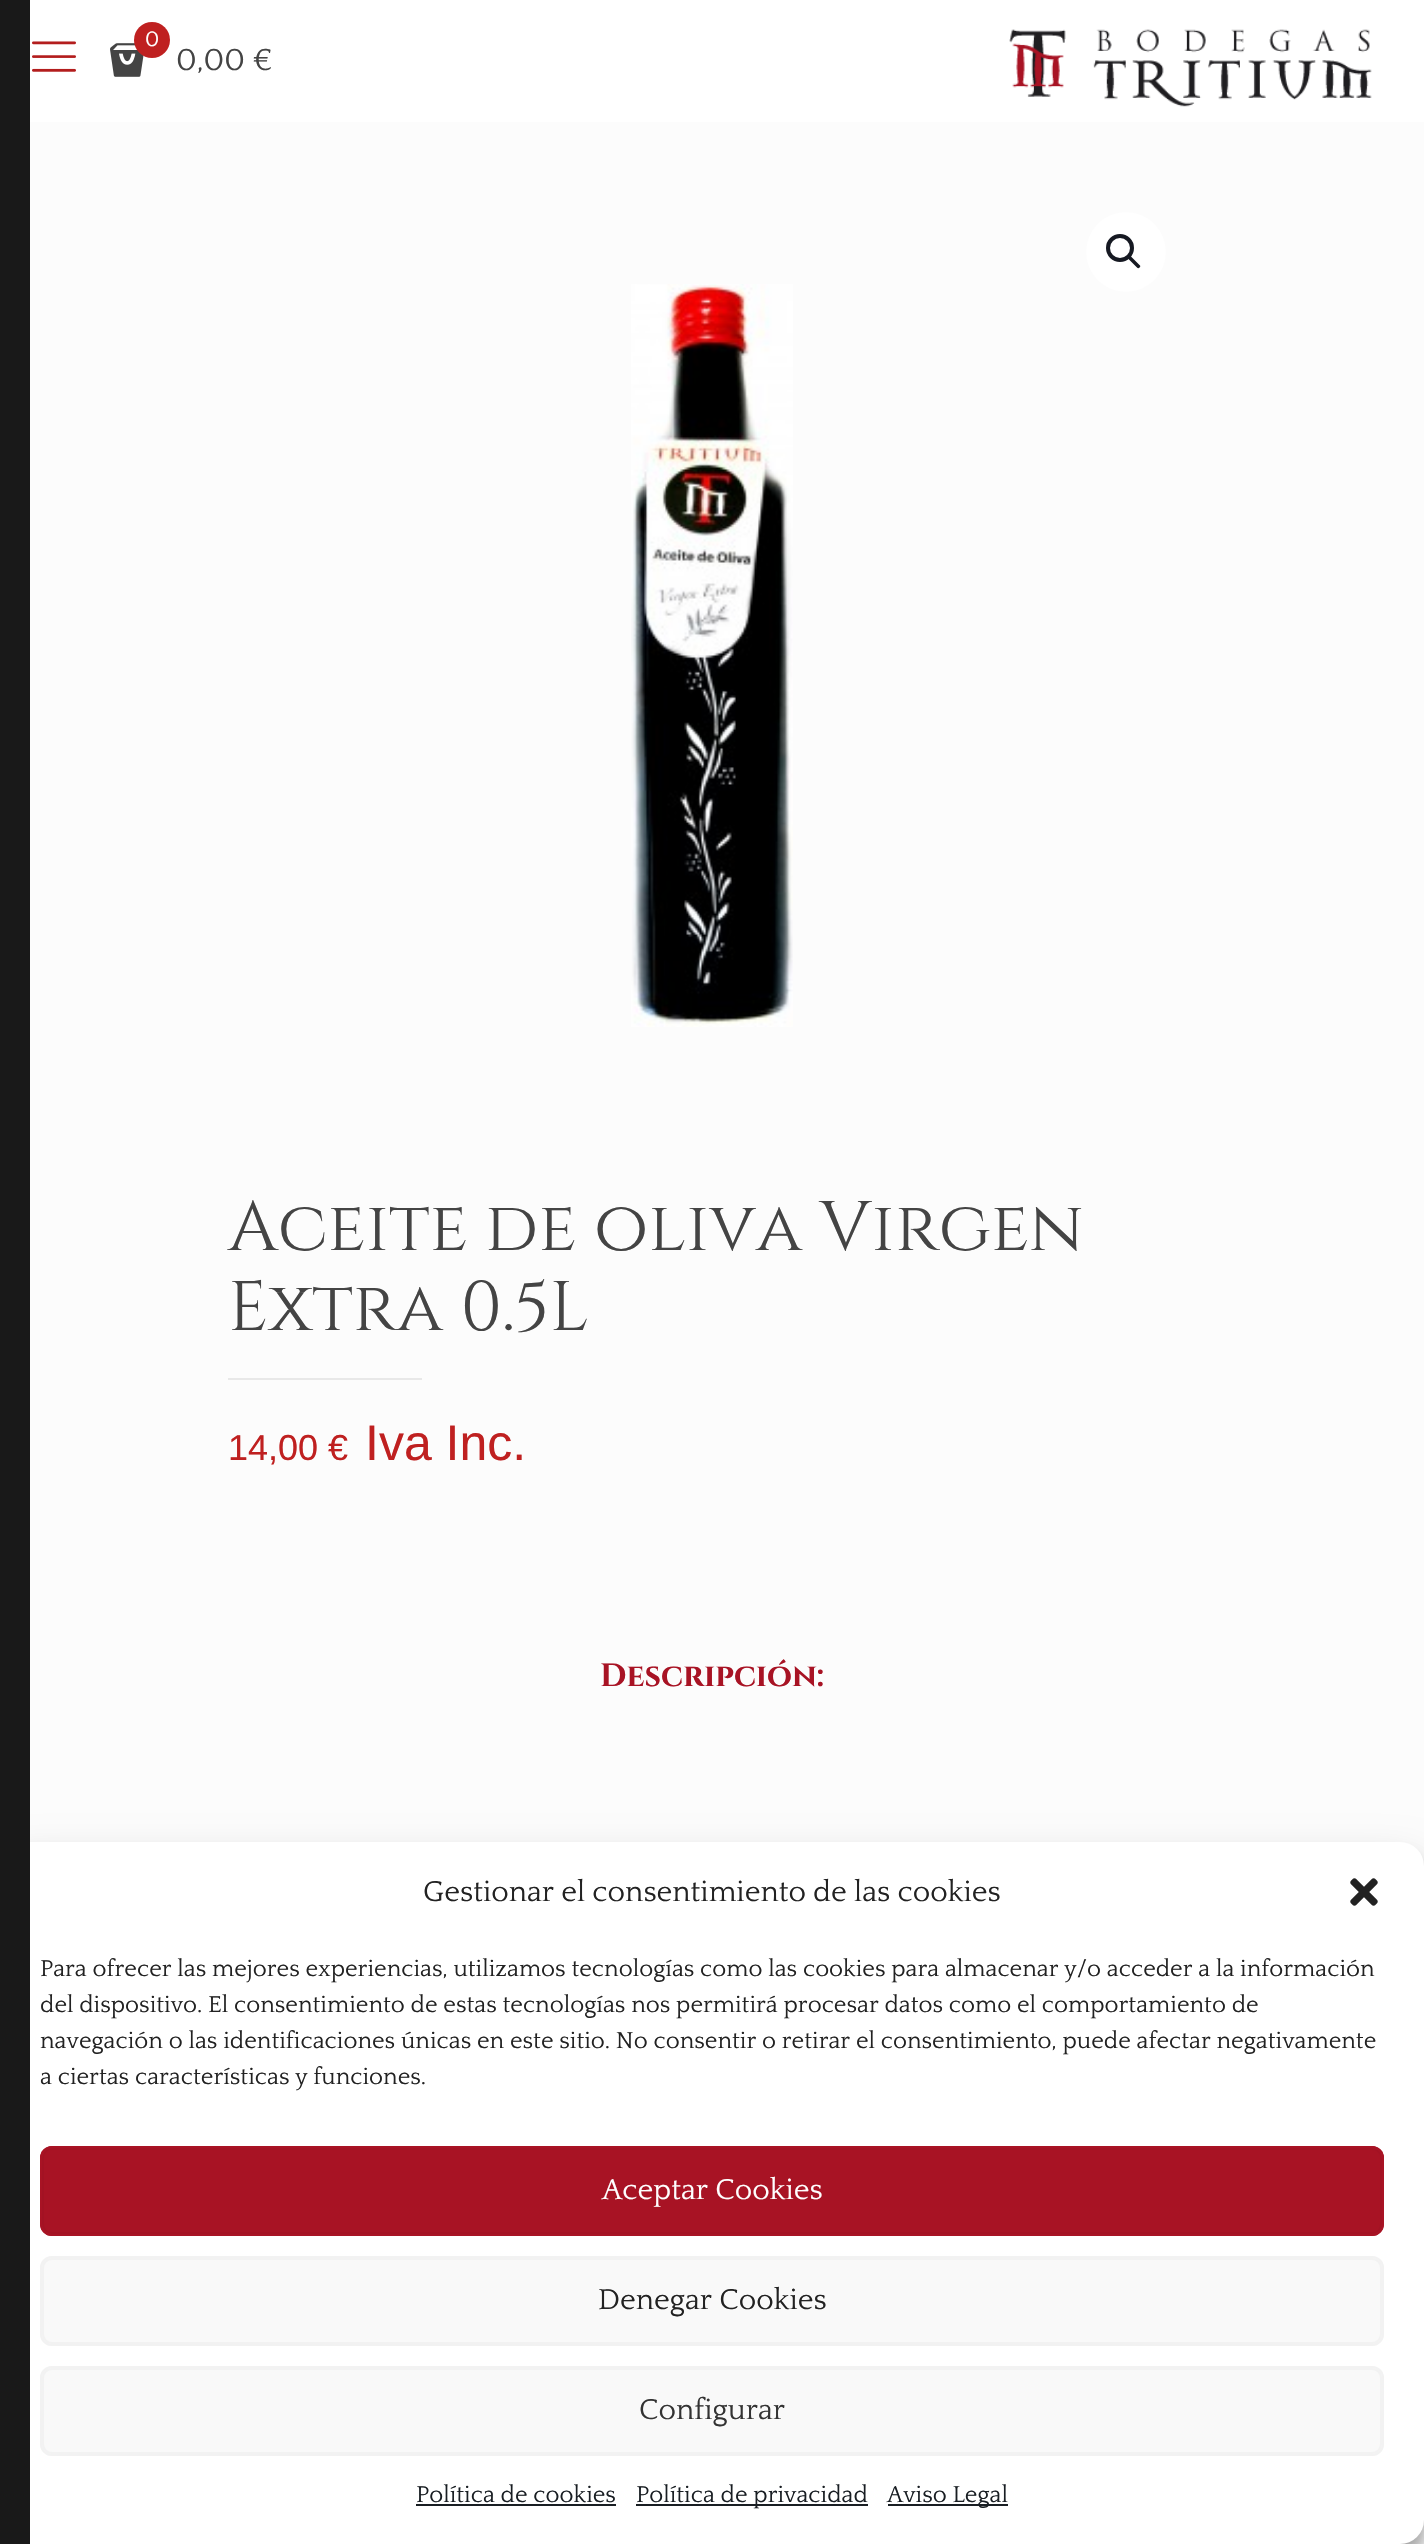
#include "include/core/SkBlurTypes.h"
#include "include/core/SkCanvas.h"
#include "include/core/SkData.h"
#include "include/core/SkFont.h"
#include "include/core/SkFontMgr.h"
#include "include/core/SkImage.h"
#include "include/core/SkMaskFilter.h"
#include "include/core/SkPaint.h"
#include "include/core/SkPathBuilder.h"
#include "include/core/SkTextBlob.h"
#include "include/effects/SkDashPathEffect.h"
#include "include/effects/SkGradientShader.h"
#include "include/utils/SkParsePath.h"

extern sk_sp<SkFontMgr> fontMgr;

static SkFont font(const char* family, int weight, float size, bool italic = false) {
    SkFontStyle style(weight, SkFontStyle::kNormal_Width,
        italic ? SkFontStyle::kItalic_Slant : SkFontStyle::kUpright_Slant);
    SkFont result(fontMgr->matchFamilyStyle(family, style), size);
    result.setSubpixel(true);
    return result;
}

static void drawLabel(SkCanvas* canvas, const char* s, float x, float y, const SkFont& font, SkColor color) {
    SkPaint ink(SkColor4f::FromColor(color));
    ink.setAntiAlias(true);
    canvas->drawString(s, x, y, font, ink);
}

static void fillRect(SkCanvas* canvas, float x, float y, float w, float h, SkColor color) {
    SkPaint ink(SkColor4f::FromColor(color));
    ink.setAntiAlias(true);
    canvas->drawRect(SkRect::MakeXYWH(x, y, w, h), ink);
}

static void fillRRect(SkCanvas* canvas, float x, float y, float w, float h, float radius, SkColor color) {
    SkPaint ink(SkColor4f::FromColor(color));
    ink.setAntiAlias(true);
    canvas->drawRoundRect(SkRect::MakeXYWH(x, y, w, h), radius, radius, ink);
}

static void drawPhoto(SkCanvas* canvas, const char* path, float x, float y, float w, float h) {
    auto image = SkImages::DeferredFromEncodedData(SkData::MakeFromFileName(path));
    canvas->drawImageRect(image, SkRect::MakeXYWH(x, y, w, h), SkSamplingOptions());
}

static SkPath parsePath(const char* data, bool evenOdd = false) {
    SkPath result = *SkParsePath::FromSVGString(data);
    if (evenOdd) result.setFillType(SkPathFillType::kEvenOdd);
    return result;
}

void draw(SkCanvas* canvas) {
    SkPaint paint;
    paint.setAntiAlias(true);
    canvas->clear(0xFFFCFCFC);
    paint.setColor(0x3B000000);
    paint.setMaskFilter(SkMaskFilter::MakeBlur(kNormal_SkBlurStyle, 6));
    canvas->drawRoundRect(SkRect::MakeXYWH(0, 1854, 1424, 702), 24, 24, paint);
    paint.setMaskFilter(nullptr);
    paint.setColor(0x30000000);
    paint.setMaskFilter(SkMaskFilter::MakeBlur(kNormal_SkBlurStyle, 20));
    canvas->drawRoundRect(SkRect::MakeXYWH(0, 1862, 1424, 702), 24, 24, paint);
    paint.setMaskFilter(nullptr);
    fillRRect(canvas, 0, 1842, 1424, 702, 24, 0xFFFFFFFF);
    fillRect(canvas, 0, 0, 30, 2544, 0xFF191919);
    fillRect(canvas, 30, 0, 1394, 122, 0xFFFFFFFF);
    drawPhoto(canvas, "assets/img1.png", 32, 41, 44, 31);
    drawPhoto(canvas, "assets/img2.png", 1009, 29, 363, 78);
    drawPhoto(canvas, "assets/img3.png", 110, 43, 34, 34);
    paint.setColor(0xFFBF2020);
    canvas->drawCircle(152, 40, 18, paint);
    SkFont font1 = font("Quattrocento", 400, 22);
    drawLabel(canvas, "0", 145, 46, font1, 0xFFFFFFFF);
    SkFont font2 = font("Quattrocento", 400, 32);
    drawLabel(canvas, "0,00 €", 176, 70, font2, 0xFF444444);
    paint.setColor(0xFFFFFFFF);
    canvas->drawCircle(1126, 252, 40, paint);
    paint.setStroke(true);
    paint.setStrokeWidth(4);
    paint.setColor(0xFF161922);
    canvas->drawCircle(1120, 248, 12, paint);
    paint.setStroke(false);
    canvas->drawPath(parsePath("M1128.5 256.5C1129 255.5 1130.5 255.5 1131 256.5L1139.5 265C1140.5 265.5 1140.5 267 1139.5 267.5C1139 268.5 1137.5 268.5 1137 267.5L1128.5 259C1127.5 258.5 1127.5 257 1128.5 256.5Z"), paint);
    drawPhoto(canvas, "assets/img4.png", 631, 284, 162, 743);
    SkFont font3 = font("Cinzel", 400, 70);
    drawLabel(canvas, "Aceite de oliva Virgen", 228, 1250, font3, 0xFF444444);
    drawLabel(canvas, "Extra 0.5L", 228, 1330, font3, 0xFF444444);
    fillRect(canvas, 228, 1378, 194, 2, 0xFFE8E8E8);
    SkFont font4 = font("Liberation Sans", 400, 36);
    drawLabel(canvas, "14,00 €", 228, 1460, font4, 0xFFBF2020);
    SkFont font5 = font("Liberation Sans", 400, 50);
    drawLabel(canvas, "Iva Inc.", 365, 1460, font5, 0xFFBF2020);
    SkFont font6 = font("Cinzel", 700, 32);
    drawLabel(canvas, "Descripción:", 600, 1686, font6, 0xFFA81324);
    SkFont font7 = font("Quattrocento", 400, 30);
    drawLabel(canvas, "Gestionar el consentimiento de las cookies", 423, 1901, font7, 0xFF222222);
    drawPhoto(canvas, "assets/img5.png", 1350, 1878, 28, 28);
    SkFont font8 = font("Quattrocento", 400, 24);
    drawLabel(canvas, "Para ofrecer las mejores experiencias, utilizamos tecnologías como las cookies para almacenar y/o acceder a la información", 40, 1976, font8, 0xFF222222);
    drawLabel(canvas, "del dispositivo. El consentimiento de estas tecnologías nos permitirá procesar datos como el comportamiento de", 40, 2012, font8, 0xFF222222);
    drawLabel(canvas, "navegación o las identificaciones únicas en este sitio. No consentir o retirar el consentimiento, puede afectar negativamente", 40, 2048, font8, 0xFF222222);
    drawLabel(canvas, "a ciertas características y funciones.", 40, 2084, font8, 0xFF222222);
    fillRRect(canvas, 40, 2146, 1344, 90, 12, 0xFFA81324);
    paint.setStroke(true);
    paint.setStrokeWidth(2);
    paint.setColor(0xFFA31223);
    canvas->drawRoundRect(SkRect::MakeXYWH(43, 2149, 1338, 84), 9, 9, paint);
    paint.setColor(0xFFA81324);
    canvas->drawRoundRect(SkRect::MakeXYWH(41, 2147, 1342, 88), 11, 11, paint);
    drawLabel(canvas, "Aceptar Cookies", 602, 2199, font7, 0xFFFFFFFF);
    fillRRect(canvas, 40, 2256, 1344, 90, 12, 0xFFF9F9F9);
    paint.setColor(0xFFF2F2F2);
    canvas->drawRoundRect(SkRect::MakeXYWH(43, 2259, 1338, 84), 9, 9, paint);
    canvas->drawRoundRect(SkRect::MakeXYWH(41, 2257, 1342, 88), 11, 11, paint);
    drawLabel(canvas, "Denegar Cookies", 598, 2309, font7, 0xFF222222);
    fillRRect(canvas, 40, 2366, 1344, 90, 12, 0xFFF9F9F9);
    canvas->drawRoundRect(SkRect::MakeXYWH(43, 2369, 1338, 84), 9, 9, paint);
    canvas->drawRoundRect(SkRect::MakeXYWH(41, 2367, 1342, 88), 11, 11, paint);
    drawLabel(canvas, "Configurar", 639, 2419, font7, 0xFF333333);
    drawLabel(canvas, "Política de cookies", 416, 2502, font8, 0xFF191E23);
    fillRect(canvas, 416, 2504, 200, 2, 0xFF191E23);
    fillRect(canvas, 636, 2504, 232, 2, 0xFF191E23);
    drawLabel(canvas, "Política de privacidad", 636, 2502, font8, 0xFF191E23);
    fillRect(canvas, 888, 2504, 120, 2, 0xFF191E23);
    drawLabel(canvas, "Aviso Legal", 887, 2502, font8, 0xFF191E23);
}
